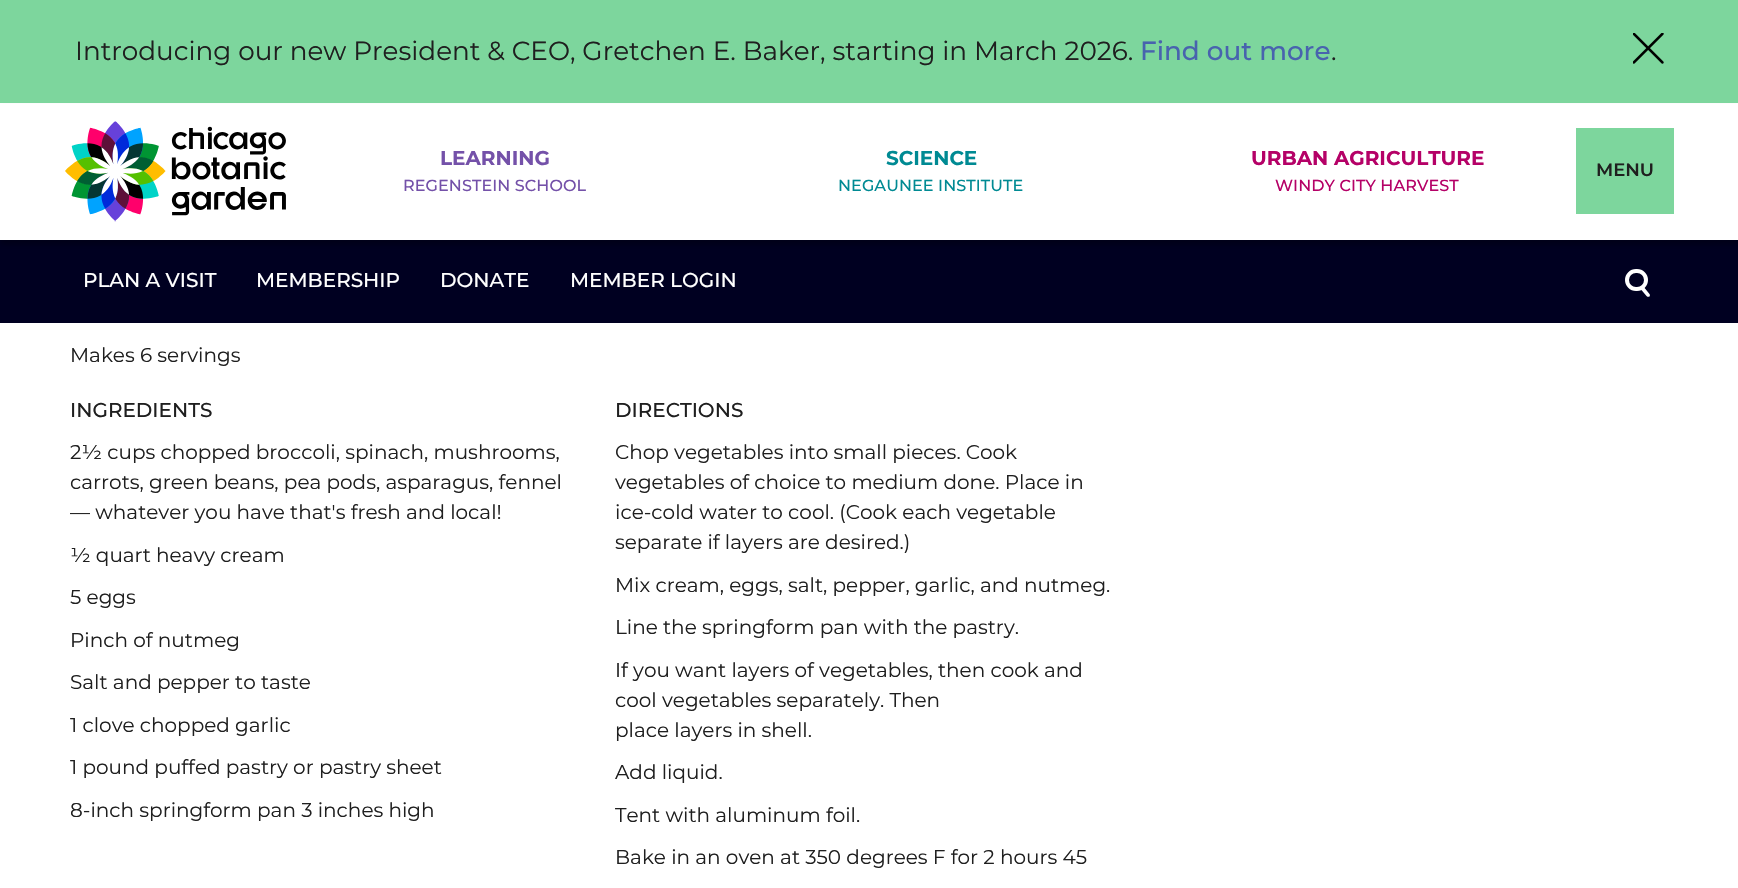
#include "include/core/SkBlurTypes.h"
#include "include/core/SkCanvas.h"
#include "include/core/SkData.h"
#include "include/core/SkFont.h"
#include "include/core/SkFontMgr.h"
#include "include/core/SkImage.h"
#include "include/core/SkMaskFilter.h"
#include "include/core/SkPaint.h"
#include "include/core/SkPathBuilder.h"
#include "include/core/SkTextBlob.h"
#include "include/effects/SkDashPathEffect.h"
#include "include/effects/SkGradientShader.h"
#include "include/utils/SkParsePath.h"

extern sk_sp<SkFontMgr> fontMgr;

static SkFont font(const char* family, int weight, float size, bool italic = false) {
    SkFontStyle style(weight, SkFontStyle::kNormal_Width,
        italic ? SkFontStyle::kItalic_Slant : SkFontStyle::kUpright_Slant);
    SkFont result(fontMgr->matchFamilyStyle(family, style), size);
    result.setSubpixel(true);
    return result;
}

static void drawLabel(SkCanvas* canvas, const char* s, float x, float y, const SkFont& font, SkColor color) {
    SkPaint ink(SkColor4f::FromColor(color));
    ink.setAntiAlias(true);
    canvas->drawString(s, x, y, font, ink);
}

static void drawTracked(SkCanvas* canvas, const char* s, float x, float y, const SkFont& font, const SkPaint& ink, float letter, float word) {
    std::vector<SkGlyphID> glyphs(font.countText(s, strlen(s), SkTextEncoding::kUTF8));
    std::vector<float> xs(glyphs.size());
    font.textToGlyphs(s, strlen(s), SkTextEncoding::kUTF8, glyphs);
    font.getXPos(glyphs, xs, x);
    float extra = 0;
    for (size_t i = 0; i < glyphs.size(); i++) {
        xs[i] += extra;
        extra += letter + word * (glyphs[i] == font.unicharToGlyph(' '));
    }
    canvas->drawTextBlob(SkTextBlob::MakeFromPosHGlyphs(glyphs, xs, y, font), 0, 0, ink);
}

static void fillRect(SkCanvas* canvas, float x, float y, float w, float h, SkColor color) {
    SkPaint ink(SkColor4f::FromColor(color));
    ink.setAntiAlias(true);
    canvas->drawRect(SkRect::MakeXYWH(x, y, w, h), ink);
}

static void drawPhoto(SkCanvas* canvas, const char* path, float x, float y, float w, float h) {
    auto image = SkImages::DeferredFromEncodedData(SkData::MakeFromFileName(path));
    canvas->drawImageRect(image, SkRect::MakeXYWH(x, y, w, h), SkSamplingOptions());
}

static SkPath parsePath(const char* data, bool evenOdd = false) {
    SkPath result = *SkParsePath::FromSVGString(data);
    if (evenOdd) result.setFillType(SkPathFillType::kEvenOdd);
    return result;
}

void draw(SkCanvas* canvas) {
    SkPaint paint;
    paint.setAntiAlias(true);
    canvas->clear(0xFFFFFFFF);
    fillRect(canvas, 0, 240, 1738, 83, 0xFF000021);
    paint.setColor(0x40000000);
    paint.setMaskFilter(SkMaskFilter::MakeBlur(kNormal_SkBlurStyle, 2.5f));
    canvas->drawRect(SkRect::MakeXYWH(0, 108, 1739, 137), paint);
    paint.setMaskFilter(nullptr);
    fillRect(canvas, 0, 0, 1738, 103, 0xFF7DD69D);
    SkFont font1 = font("Montserrat", 400, 26.25f);
    drawLabel(canvas, "Introducing our new President & CEO, Gretchen E. Baker, starting in March 2026.", 75, 60, font1, 0xFF1F1F1F);
    SkFont font2 = font("Montserrat", 500, 26.25f);
    drawLabel(canvas, "Find out more", 1140, 60, font2, 0xFF4863AE);
    drawLabel(canvas, ".", 1331, 60, font1, 0xFF1F1F1F);
    drawPhoto(canvas, "assets/img1.png", 1633, 33, 31, 31);
    fillRect(canvas, 0, 104, 1738, 136, 0xFFFFFFFF);
    drawPhoto(canvas, "assets/img2.png", 65, 121, 222, 101);
    SkFont font3 = font("Montserrat", 700, 20);
    drawLabel(canvas, "LEARNING", 440, 165, font3, 0xFF7451A9);
    SkFont font4 = font("Montserrat", 500, 16);
    paint.setColor(0xFF7451A9);
    drawTracked(canvas, "REGENSTEIN SCHOOL", 403, 191, font4, paint, 0.1f, 0);
    drawLabel(canvas, "SCIENCE", 886, 165, font3, 0xFF008A93);
    paint.setColor(0xFF008A93);
    drawTracked(canvas, "NEGAUNEE INSTITUTE", 838, 191, font4, paint, 0.1f, 0);
    drawLabel(canvas, "URBAN AGRICULTURE", 1251, 165, font3, 0xFFB50167);
    paint.setColor(0xFFB50167);
    drawTracked(canvas, "WINDY CITY HARVEST", 1275, 191, font4, paint, 0.1f, 0);
    fillRect(canvas, 1576, 128, 98, 86, 0xFF7DD69D);
    SkFont font5 = font("Montserrat", 600, 18);
    drawLabel(canvas, "MENU", 1596, 176, font5, 0xFF1F1F1F);
    SkFont font6 = font("Montserrat", 500, 20);
    drawLabel(canvas, "PLAN A VISIT", 83, 287, font6, 0xFFFFFFFF);
    drawLabel(canvas, "MEMBERSHIP", 256, 287, font6, 0xFFFFFFFF);
    drawLabel(canvas, "DONATE", 440, 287, font6, 0xFFFFFFFF);
    drawLabel(canvas, "MEMBER LOGIN", 570, 287, font6, 0xFFFFFFFF);
    paint.setColor(0xFFFFFFFF);
    canvas->drawPath(parsePath("M1633 277.5C1634 276.5 1635 276.5 1636 277.5L1649.5 294C1650 294.5 1650 296 1649.5 296.5C1648.5 297 1647.5 297 1646.5 296L1633 280C1632.5 279 1632.5 278 1633 277.5Z"), paint);
    paint.setColor(0xFF000021);
    canvas->drawRoundRect(SkRect::MakeXYWH(1627, 271, 19, 18), 9, 9, paint);
    paint.setStroke(true);
    paint.setStrokeWidth(4);
    paint.setColor(0xFFFFFFFF);
    canvas->drawRoundRect(SkRect::MakeXYWH(1627, 271, 19, 18), 9, 9, paint);
    SkFont font7 = font("Montserrat", 400, 20);
    drawLabel(canvas, "Makes 6 servings", 70, 362, font7, 0xFF1F1F1F);
    drawLabel(canvas, "INGREDIENTS", 70, 417, font6, 0xFF1F1F1F);
    drawLabel(canvas, "2½ cups chopped broccoli, spinach, mushrooms,", 70, 459, font7, 0xFF1F1F1F);
    drawLabel(canvas, "carrots, green beans, pea pods, asparagus, fennel", 70, 489, font7, 0xFF1F1F1F);
    drawLabel(canvas, "— whatever you have that's fresh and local!", 70, 519, font7, 0xFF1F1F1F);
    drawLabel(canvas, "½ quart heavy cream", 70, 562, font7, 0xFF1F1F1F);
    drawLabel(canvas, "5 eggs", 70, 604, font7, 0xFF1F1F1F);
    drawLabel(canvas, "Pinch of nutmeg", 70, 647, font7, 0xFF1F1F1F);
    drawLabel(canvas, "Salt and pepper to taste", 70, 689, font7, 0xFF1F1F1F);
    drawLabel(canvas, "1 clove chopped garlic", 70, 732, font7, 0xFF1F1F1F);
    drawLabel(canvas, "1 pound puffed pastry or pastry sheet", 70, 774, font7, 0xFF1F1F1F);
    drawLabel(canvas, "8-inch springform pan 3 inches high", 70, 817, font7, 0xFF1F1F1F);
    drawLabel(canvas, "DIRECTIONS", 615, 417, font6, 0xFF1F1F1F);
    drawLabel(canvas, "Chop vegetables into small pieces. Cook", 615, 459, font7, 0xFF1F1F1F);
    drawLabel(canvas, "vegetables of choice to medium done. Place in", 615, 489, font7, 0xFF1F1F1F);
    drawLabel(canvas, "ice-cold water to cool. (Cook each vegetable", 615, 519, font7, 0xFF1F1F1F);
    drawLabel(canvas, "separate if layers are desired.)", 615, 549, font7, 0xFF1F1F1F);
    drawLabel(canvas, "Mix cream, eggs, salt, pepper, garlic, and nutmeg.", 615, 592, font7, 0xFF1F1F1F);
    drawLabel(canvas, "Line the springform pan with the pastry.", 615, 634, font7, 0xFF1F1F1F);
    drawLabel(canvas, "If you want layers of vegetables, then cook and", 615, 677, font7, 0xFF1F1F1F);
    drawLabel(canvas, "cool vegetables separately. Then", 615, 707, font7, 0xFF1F1F1F);
    drawLabel(canvas, "place layers in shell.", 615, 737, font7, 0xFF1F1F1F);
    drawLabel(canvas, "Add liquid.", 615, 779, font7, 0xFF1F1F1F);
    drawLabel(canvas, "Tent with aluminum foil.", 615, 822, font7, 0xFF1F1F1F);
    drawLabel(canvas, "Bake in an oven at 350 degrees F for 2 hours 45", 615, 864, font7, 0xFF1F1F1F);
}
